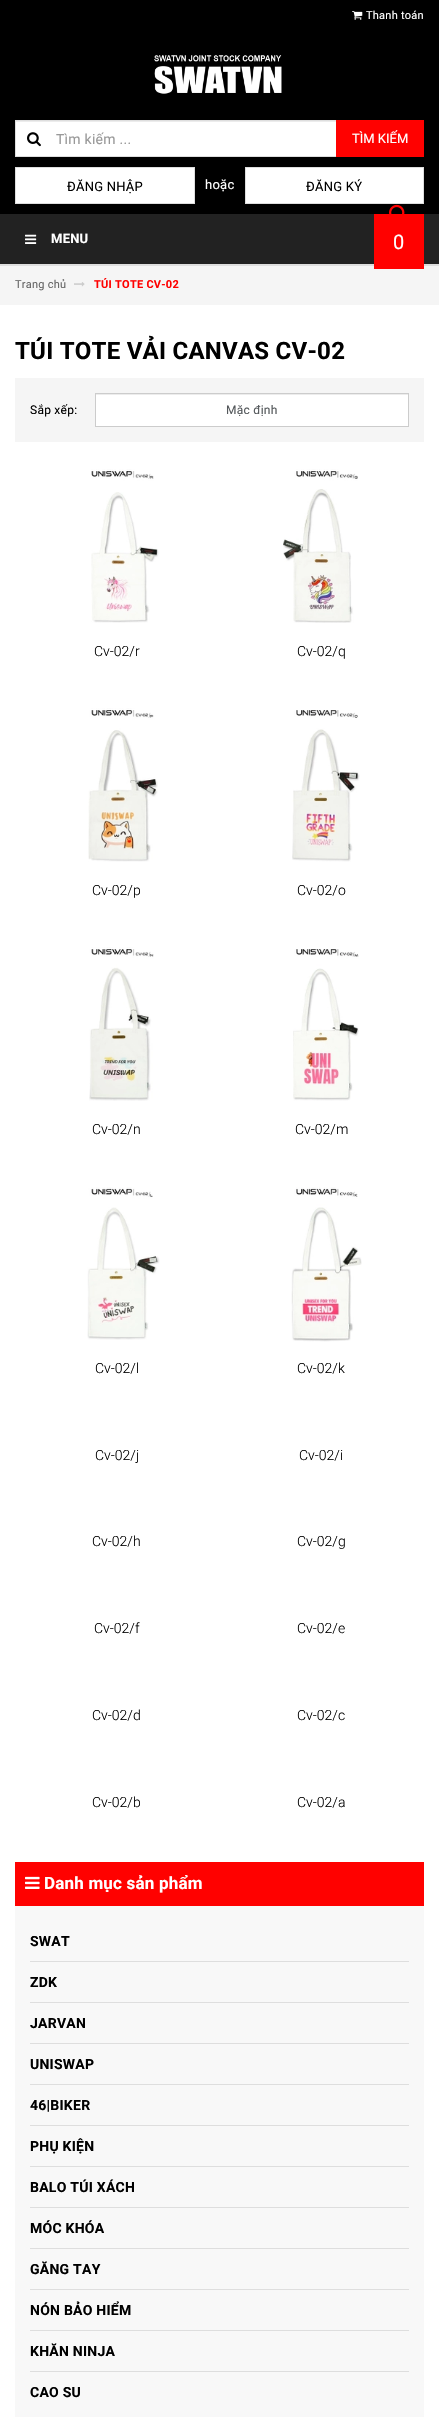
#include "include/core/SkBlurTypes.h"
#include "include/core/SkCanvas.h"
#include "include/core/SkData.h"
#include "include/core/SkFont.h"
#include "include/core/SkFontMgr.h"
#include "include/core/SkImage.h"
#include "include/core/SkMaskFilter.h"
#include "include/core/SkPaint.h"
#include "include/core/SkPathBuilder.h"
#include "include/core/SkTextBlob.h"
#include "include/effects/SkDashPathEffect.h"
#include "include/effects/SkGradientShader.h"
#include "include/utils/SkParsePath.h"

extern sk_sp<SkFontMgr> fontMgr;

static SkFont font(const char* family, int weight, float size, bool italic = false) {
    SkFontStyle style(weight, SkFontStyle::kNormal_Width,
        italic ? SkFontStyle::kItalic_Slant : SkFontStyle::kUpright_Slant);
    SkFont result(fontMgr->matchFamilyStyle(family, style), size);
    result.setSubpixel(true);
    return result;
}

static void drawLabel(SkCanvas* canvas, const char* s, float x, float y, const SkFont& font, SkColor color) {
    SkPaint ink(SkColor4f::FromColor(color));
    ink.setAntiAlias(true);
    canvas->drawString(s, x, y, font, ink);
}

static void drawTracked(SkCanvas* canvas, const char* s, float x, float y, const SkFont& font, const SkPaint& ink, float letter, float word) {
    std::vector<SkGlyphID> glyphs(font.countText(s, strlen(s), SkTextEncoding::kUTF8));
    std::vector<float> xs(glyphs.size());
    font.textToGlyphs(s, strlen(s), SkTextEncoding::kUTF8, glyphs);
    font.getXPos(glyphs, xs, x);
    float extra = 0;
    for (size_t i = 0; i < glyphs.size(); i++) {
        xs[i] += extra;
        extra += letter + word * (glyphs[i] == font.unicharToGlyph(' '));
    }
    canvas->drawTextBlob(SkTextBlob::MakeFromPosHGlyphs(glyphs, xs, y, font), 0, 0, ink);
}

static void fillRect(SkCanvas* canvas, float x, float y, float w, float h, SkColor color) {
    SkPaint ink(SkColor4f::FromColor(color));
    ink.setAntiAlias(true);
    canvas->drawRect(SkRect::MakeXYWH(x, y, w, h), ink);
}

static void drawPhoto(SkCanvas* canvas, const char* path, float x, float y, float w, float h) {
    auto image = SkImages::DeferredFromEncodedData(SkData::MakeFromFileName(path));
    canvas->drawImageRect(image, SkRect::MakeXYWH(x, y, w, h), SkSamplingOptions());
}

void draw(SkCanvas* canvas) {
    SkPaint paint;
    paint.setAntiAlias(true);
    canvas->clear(0xFFFFFFFF);
    fillRect(canvas, 0, 0, 439, 214, 0xFF000000);
    drawPhoto(canvas, "assets/img1.png", 352, 11, 11, 9);
    SkFont font1 = font("Roboto", 400, 11);
    paint.setColor(0xFFFFFFFF);
    drawTracked(canvas, "Thanh toán", 366, 19, font1, paint, 0.25f, 0);
    drawPhoto(canvas, "assets/img2.png", 154, 55, 128, 39);
    fillRect(canvas, 16, 122, 320, 34, 0xFFFFFFFF);
    fillRect(canvas, 16, 121, 320, 1, 0xFFECECEC);
    paint.setStroke(true);
    paint.setStrokeWidth(1);
    paint.setColor(0xFFDEDEDE);
    canvas->drawRect(SkRect::MakeXYWH(15.5f, 120.5f, 321, 36), paint);
    drawPhoto(canvas, "assets/img3.png", 27, 132, 14, 15);
    SkFont font2 = font("Roboto", 400, 14);
    paint.setStroke(false);
    paint.setColor(0xFF999999);
    drawTracked(canvas, "Tìm kiếm ...", 56, 144, font2, paint, 0.25f, 0);
    fillRect(canvas, 336, 120, 88, 37, 0xFFFF0100);
    SkFont font3 = font("Roboto", 400, 13);
    drawLabel(canvas, "TÌM KIẾM", 352, 143, font3, 0xFFFFFFFF);
    paint.setColor(0xFFFFFFFF);
    canvas->drawRect(SkRect::MakeXYWH(15.5f, 167.5f, 179, 36), paint);
    paint.setStroke(true);
    paint.setColor(0xFFDEDEDE);
    canvas->drawRect(SkRect::MakeXYWH(15.5f, 167.5f, 179, 36), paint);
    paint.setStroke(false);
    paint.setColor(0xFF000000);
    drawTracked(canvas, "ĐĂNG NHẬP", 67, 191, font3, paint, 0.25f, 0);
    paint.setColor(0xFFFFFFFF);
    drawTracked(canvas, "hoặc", 205, 189, font3, paint, 0.25f, 0);
    canvas->drawRect(SkRect::MakeXYWH(245.5f, 167.5f, 178, 36), paint);
    paint.setStroke(true);
    paint.setColor(0xFFDEDEDE);
    canvas->drawRect(SkRect::MakeXYWH(245.5f, 167.5f, 178, 36), paint);
    paint.setStroke(false);
    paint.setColor(0xFF000000);
    drawTracked(canvas, "ĐĂNG KÝ", 306, 191, font3, paint, 0.25f, 0);
    fillRect(canvas, 0, 264, 439, 2, 0xFFDEDEDE);
    fillRect(canvas, 0, 214, 439, 50, 0xFF222222);
    drawPhoto(canvas, "assets/img4.png", 25, 234, 12, 10);
    SkFont font4 = font("Roboto", 700, 13);
    paint.setColor(0xFFFFFFFF);
    drawTracked(canvas, "MENU", 51, 243, font4, paint, 0.25f, 0);
    fillRect(canvas, 0, 266, 439, 39, 0xFFF5F5F5);
    fillRect(canvas, 374, 214, 50, 55, 0xFFFF0100);
    drawPhoto(canvas, "assets/img5.png", 389, 204, 16, 10);
    SkFont font5 = font("Roboto", 400, 20);
    drawTracked(canvas, "0", 393, 249, font5, paint, 0.25f, 0);
    paint.setColor(0xFF666666);
    drawTracked(canvas, "Trang chủ", 15, 288, font1, paint, 0.25f, 0);
    drawPhoto(canvas, "assets/img6.png", 74, 282, 11, 5);
    SkFont font6 = font("Roboto", 700, 11);
    paint.setColor(0xFFFF0100);
    drawTracked(canvas, "TÚI TOTE CV-02", 94, 288, font6, paint, 0.25f, 0);
    SkFont font7 = font("Roboto", 700, 24);
    paint.setColor(0xFF000000);
    drawTracked(canvas, "TÚI TOTE VẢI CANVAS CV-02", 15, 359, font7, paint, 0.25f, 0);
    fillRect(canvas, 15, 378, 409, 64, 0xFFF5F5F5);
    SkFont font8 = font("Roboto", 400, 12);
    drawTracked(canvas, "Sắp xếp:", 30, 414, font8, paint, 0.25f, 0);
    fillRect(canvas, 96, 395, 312, 31, 0xFFFFFFFF);
    fillRect(canvas, 96, 394, 312, 1, 0xFFECECEC);
    paint.setStroke(true);
    paint.setColor(0xFFCCCCCC);
    canvas->drawRect(SkRect::MakeXYWH(95.5f, 393.5f, 313, 33), paint);
    paint.setStroke(false);
    paint.setColor(0xFF55595C);
    drawTracked(canvas, "Mặc định", 226, 414, font8, paint, 0.25f, 0);
    drawPhoto(canvas, "assets/img7.png", 91, 469, 68, 154);
    SkFont font9 = font("Roboto", 300, 14);
    drawLabel(canvas, "Cv-02/r", 94, 656, font9, 0xFF000000);
    drawPhoto(canvas, "assets/img8.png", 283, 469, 75, 154);
    drawLabel(canvas, "Cv-02/q", 297, 656, font9, 0xFF000000);
    drawPhoto(canvas, "assets/img9.png", 88, 708, 70, 154);
    drawLabel(canvas, "Cv-02/p", 92, 895, font9, 0xFF000000);
    drawPhoto(canvas, "assets/img10.png", 292, 710, 68, 152);
    drawLabel(canvas, "Cv-02/o", 297, 895, font9, 0xFF000000);
    drawPhoto(canvas, "assets/img11.png", 89, 947, 65, 154);
    drawLabel(canvas, "Cv-02/n", 92, 1134, font9, 0xFF000000);
    drawPhoto(canvas, "assets/img12.png", 293, 949, 66, 152);
    drawLabel(canvas, "Cv-02/m", 295, 1134, font9, 0xFF000000);
    drawPhoto(canvas, "assets/img13.png", 87, 1187, 73, 153);
    drawLabel(canvas, "Cv-02/l", 95, 1373, font9, 0xFF000000);
    drawPhoto(canvas, "assets/img14.png", 291, 1187, 71, 155);
    drawLabel(canvas, "Cv-02/k", 297, 1373, font9, 0xFF000000);
    drawLabel(canvas, "Cv-02/j", 95, 1460, font9, 0xFF000000);
    drawLabel(canvas, "Cv-02/i", 299, 1460, font9, 0xFF000000);
    drawLabel(canvas, "Cv-02/h", 92, 1546, font9, 0xFF000000);
    drawLabel(canvas, "Cv-02/g", 297, 1546, font9, 0xFF000000);
    drawLabel(canvas, "Cv-02/f", 94, 1633, font9, 0xFF000000);
    drawLabel(canvas, "Cv-02/e", 297, 1633, font9, 0xFF000000);
    drawLabel(canvas, "Cv-02/d", 92, 1720, font9, 0xFF000000);
    drawLabel(canvas, "Cv-02/c", 297, 1720, font9, 0xFF000000);
    drawLabel(canvas, "Cv-02/b", 92, 1807, font9, 0xFF000000);
    drawLabel(canvas, "Cv-02/a", 297, 1807, font9, 0xFF000000);
    fillRect(canvas, 15, 1862, 409, 44, 0xFFFF0100);
    drawPhoto(canvas, "assets/img15.png", 25, 1876, 15, 13);
    SkFont font10 = font("Roboto", 700, 17);
    paint.setColor(0xFFFFFFFF);
    drawTracked(canvas, "Danh mục sản phẩm", 44, 1889, font10, paint, 0.2f, 0);
    fillRect(canvas, 15, 1906, 409, 511, 0xFFF8F8F8);
    SkFont font11 = font("Roboto", 700, 14);
    paint.setColor(0xFF000000);
    drawTracked(canvas, "SWAT", 30, 1946, font11, paint, 0.25f, 0);
    fillRect(canvas, 30, 1961, 379, 1, 0xFFDEDEDE);
    drawTracked(canvas, "ZDK", 30, 1987, font11, paint, 0.25f, 0);
    fillRect(canvas, 30, 2002, 379, 1, 0xFFDEDEDE);
    drawTracked(canvas, "JARVAN", 30, 2028, font11, paint, 0.25f, 0);
    fillRect(canvas, 30, 2043, 379, 1, 0xFFDEDEDE);
    drawTracked(canvas, "UNISWAP", 30, 2069, font11, paint, 0.25f, 0);
    fillRect(canvas, 30, 2084, 379, 1, 0xFFDEDEDE);
    drawTracked(canvas, "46|BIKER", 30, 2110, font11, paint, 0.25f, 0);
    fillRect(canvas, 30, 2125, 379, 1, 0xFFDEDEDE);
    drawTracked(canvas, "PHỤ KIỆN", 30, 2151, font11, paint, 0.25f, 0);
    fillRect(canvas, 30, 2166, 379, 1, 0xFFDEDEDE);
    drawTracked(canvas, "BALO TÚI XÁCH", 30, 2192, font11, paint, 0.25f, 0);
    fillRect(canvas, 30, 2207, 379, 1, 0xFFDEDEDE);
    drawTracked(canvas, "MÓC KHÓA", 30, 2233, font11, paint, 0.25f, 0);
    fillRect(canvas, 30, 2248, 379, 1, 0xFFDEDEDE);
    drawTracked(canvas, "GĂNG TAY", 30, 2274, font11, paint, 0.25f, 0);
    fillRect(canvas, 30, 2289, 379, 1, 0xFFDEDEDE);
    drawTracked(canvas, "NÓN BẢO HIỂM", 30, 2315, font11, paint, 0.25f, 0);
    fillRect(canvas, 30, 2330, 379, 1, 0xFFDEDEDE);
    drawTracked(canvas, "KHĂN NINJA", 30, 2356, font11, paint, 0.25f, 0);
    fillRect(canvas, 30, 2371, 379, 1, 0xFFDEDEDE);
    drawTracked(canvas, "CAO SU", 30, 2397, font11, paint, 0.25f, 0);
}
